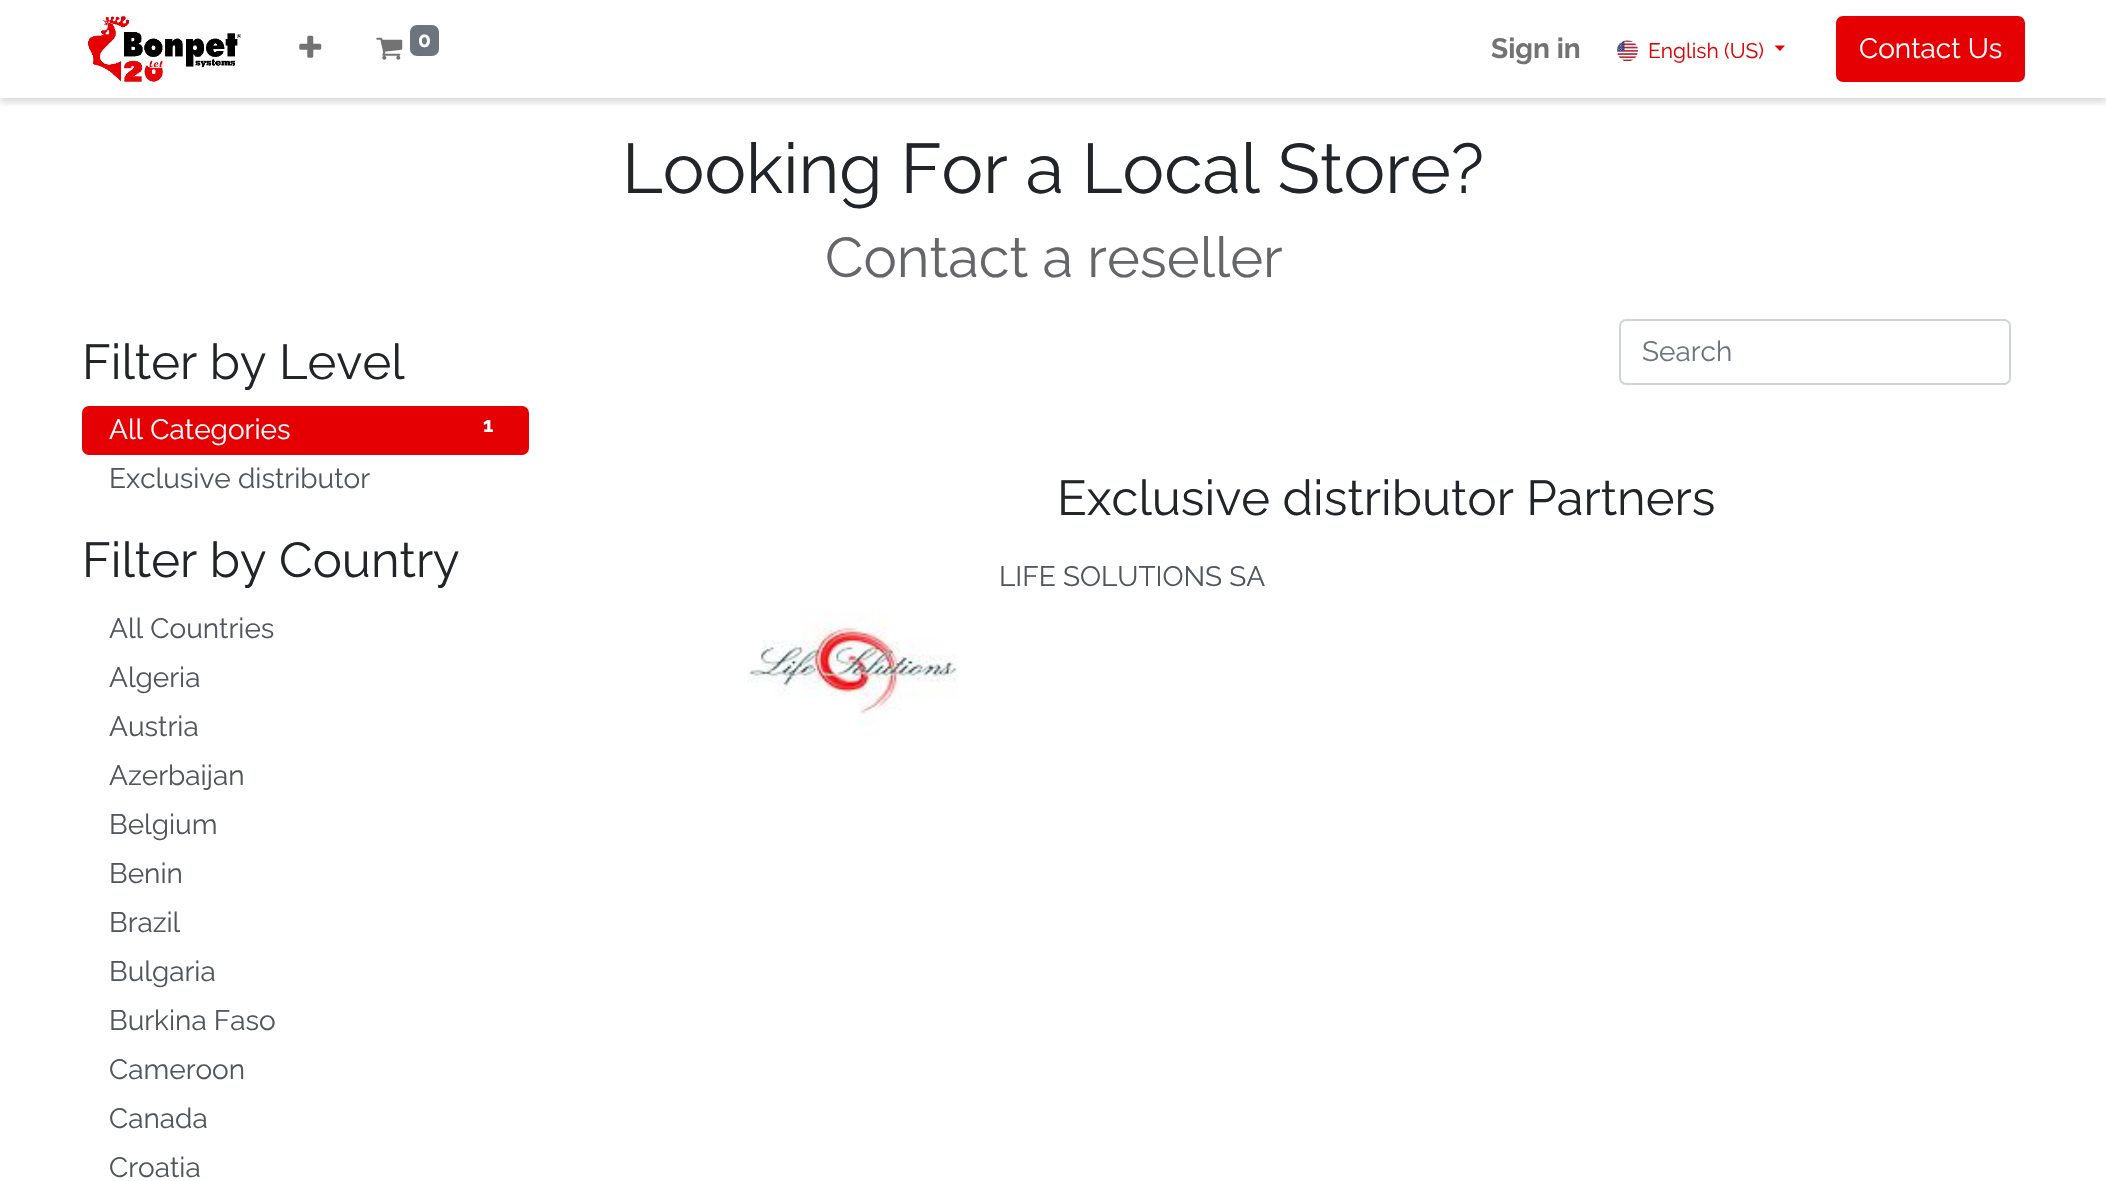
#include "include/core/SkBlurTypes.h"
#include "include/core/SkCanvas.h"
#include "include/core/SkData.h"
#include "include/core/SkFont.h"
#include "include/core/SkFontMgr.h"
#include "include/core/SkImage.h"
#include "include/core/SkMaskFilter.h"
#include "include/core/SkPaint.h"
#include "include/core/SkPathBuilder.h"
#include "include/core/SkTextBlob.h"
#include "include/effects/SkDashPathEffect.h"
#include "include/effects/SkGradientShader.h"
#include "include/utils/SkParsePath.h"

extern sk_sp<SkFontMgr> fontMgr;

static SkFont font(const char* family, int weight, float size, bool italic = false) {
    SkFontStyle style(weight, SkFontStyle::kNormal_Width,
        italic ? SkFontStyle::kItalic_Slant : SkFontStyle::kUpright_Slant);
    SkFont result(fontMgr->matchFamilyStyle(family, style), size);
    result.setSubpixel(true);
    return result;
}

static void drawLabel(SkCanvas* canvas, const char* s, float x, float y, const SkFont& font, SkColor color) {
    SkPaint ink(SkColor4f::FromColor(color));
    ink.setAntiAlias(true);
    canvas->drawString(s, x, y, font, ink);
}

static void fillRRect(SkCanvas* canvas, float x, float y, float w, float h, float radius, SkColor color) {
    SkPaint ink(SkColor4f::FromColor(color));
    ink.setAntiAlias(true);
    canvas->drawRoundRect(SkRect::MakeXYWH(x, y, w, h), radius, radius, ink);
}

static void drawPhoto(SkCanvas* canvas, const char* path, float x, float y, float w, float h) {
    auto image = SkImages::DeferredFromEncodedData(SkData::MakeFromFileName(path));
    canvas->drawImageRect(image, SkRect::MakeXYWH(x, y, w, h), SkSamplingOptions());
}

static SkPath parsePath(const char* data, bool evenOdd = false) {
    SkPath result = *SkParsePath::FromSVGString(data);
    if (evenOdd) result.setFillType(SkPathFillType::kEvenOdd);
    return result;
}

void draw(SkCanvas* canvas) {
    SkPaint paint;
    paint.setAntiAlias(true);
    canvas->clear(0xFFFFFFFF);
    canvas->save();
    canvas->clipRect(SkRect::MakeXYWH(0, 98, 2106, 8));
    paint.setColor(0x26000000);
    paint.setMaskFilter(SkMaskFilter::MakeBlur(kNormal_SkBlurStyle, 3.5f));
    canvas->drawRect(SkRect::MakeXYWH(0, 4, 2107, 98), paint);
    paint.setMaskFilter(nullptr);
    canvas->restore();
    drawPhoto(canvas, "assets/img1.png", 88, 16, 153, 66);
    drawPhoto(canvas, "assets/img2.png", 299, 35, 23, 23);
    drawPhoto(canvas, "assets/img3.png", 376, 37, 27, 23);
    fillRRect(canvas, 410, 25, 29, 31, 7, 0xFF6C757D);
    SkFont font1 = font("Raleway", 700, 21);
    drawLabel(canvas, "0", 418, 47, font1, 0xFFFFFFFF);
    SkFont font2 = font("Raleway", 700, 28);
    drawLabel(canvas, "Sign in", 1491, 58, font2, 0xFF737373);
    drawPhoto(canvas, "assets/img4.png", 1617, 40, 21, 22);
    SkFont font3 = font("Raleway", 400, 21);
    drawLabel(canvas, "English (US)", 1648, 58, font3, 0xFFE50003);
    paint.setColor(0xFFE50003);
    canvas->drawPath(parsePath("M1774.5 45.5H1785L1780 51Z"), paint);
    canvas->drawRoundRect(SkRect::MakeXYWH(1837, 17, 187, 64), 6, 6, paint);
    paint.setStroke(true);
    paint.setStrokeWidth(2);
    canvas->drawRoundRect(SkRect::MakeXYWH(1837, 17, 187, 64), 6, 6, paint);
    SkFont font4 = font("Raleway", 400, 28);
    drawLabel(canvas, "Contact Us", 1859, 58, font4, 0xFFFFFFFF);
    SkFont font5 = font("Raleway", 400, 70);
    drawLabel(canvas, "Looking For a Local Store?", 622, 193, font5, 0xFF212529);
    SkFont font6 = font("Raleway", 400, 56);
    drawLabel(canvas, "Contact a reseller", 825, 277, font6, 0xFF646669);
    SkFont font7 = font("Raleway", 400, 49);
    drawLabel(canvas, "Filter by Level", 82, 379, font7, 0xFF212529);
    fillRRect(canvas, 82, 406, 447, 49, 7, 0xFFE50003);
    drawLabel(canvas, "All Categories", 109, 439, font4, 0xFFFFFFFF);
    drawLabel(canvas, "1", 483, 432, font1, 0xFFFFFFFF);
    drawLabel(canvas, "Exclusive distributor", 109, 488, font4, 0xFF50565C);
    drawLabel(canvas, "Filter by Country", 82, 577, font7, 0xFF212529);
    drawLabel(canvas, "All Countries", 109, 638, font4, 0xFF50565C);
    drawLabel(canvas, "Algeria", 109, 687, font4, 0xFF50565C);
    drawLabel(canvas, "Austria", 109, 736, font4, 0xFF50565C);
    drawLabel(canvas, "Azerbaijan", 109, 785, font4, 0xFF50565C);
    drawLabel(canvas, "Belgium", 109, 834, font4, 0xFF50565C);
    drawLabel(canvas, "Benin", 109, 883, font4, 0xFF50565C);
    drawLabel(canvas, "Brazil", 109, 932, font4, 0xFF50565C);
    drawLabel(canvas, "Bulgaria", 109, 981, font4, 0xFF50565C);
    drawLabel(canvas, "Burkina Faso", 109, 1030, font4, 0xFF50565C);
    drawLabel(canvas, "Cameroon", 109, 1079, font4, 0xFF50565C);
    drawLabel(canvas, "Canada", 109, 1128, font4, 0xFF50565C);
    drawLabel(canvas, "Croatia", 109, 1177, font4, 0xFF50565C);
    paint.setColor(0xFFCED4DA);
    canvas->drawRoundRect(SkRect::MakeXYWH(1620, 320, 390, 64), 6, 6, paint);
    drawLabel(canvas, "Search", 1642, 361, font4, 0xFF6C757D);
    drawLabel(canvas, "Exclusive distributor Partners", 1057, 515, font7, 0xFF212529);
    drawLabel(canvas, "LIFE SOLUTIONS SA", 999, 586, font4, 0xFF50565C);
    drawPhoto(canvas, "assets/img5.png", 747, 612, 211, 113);
}
